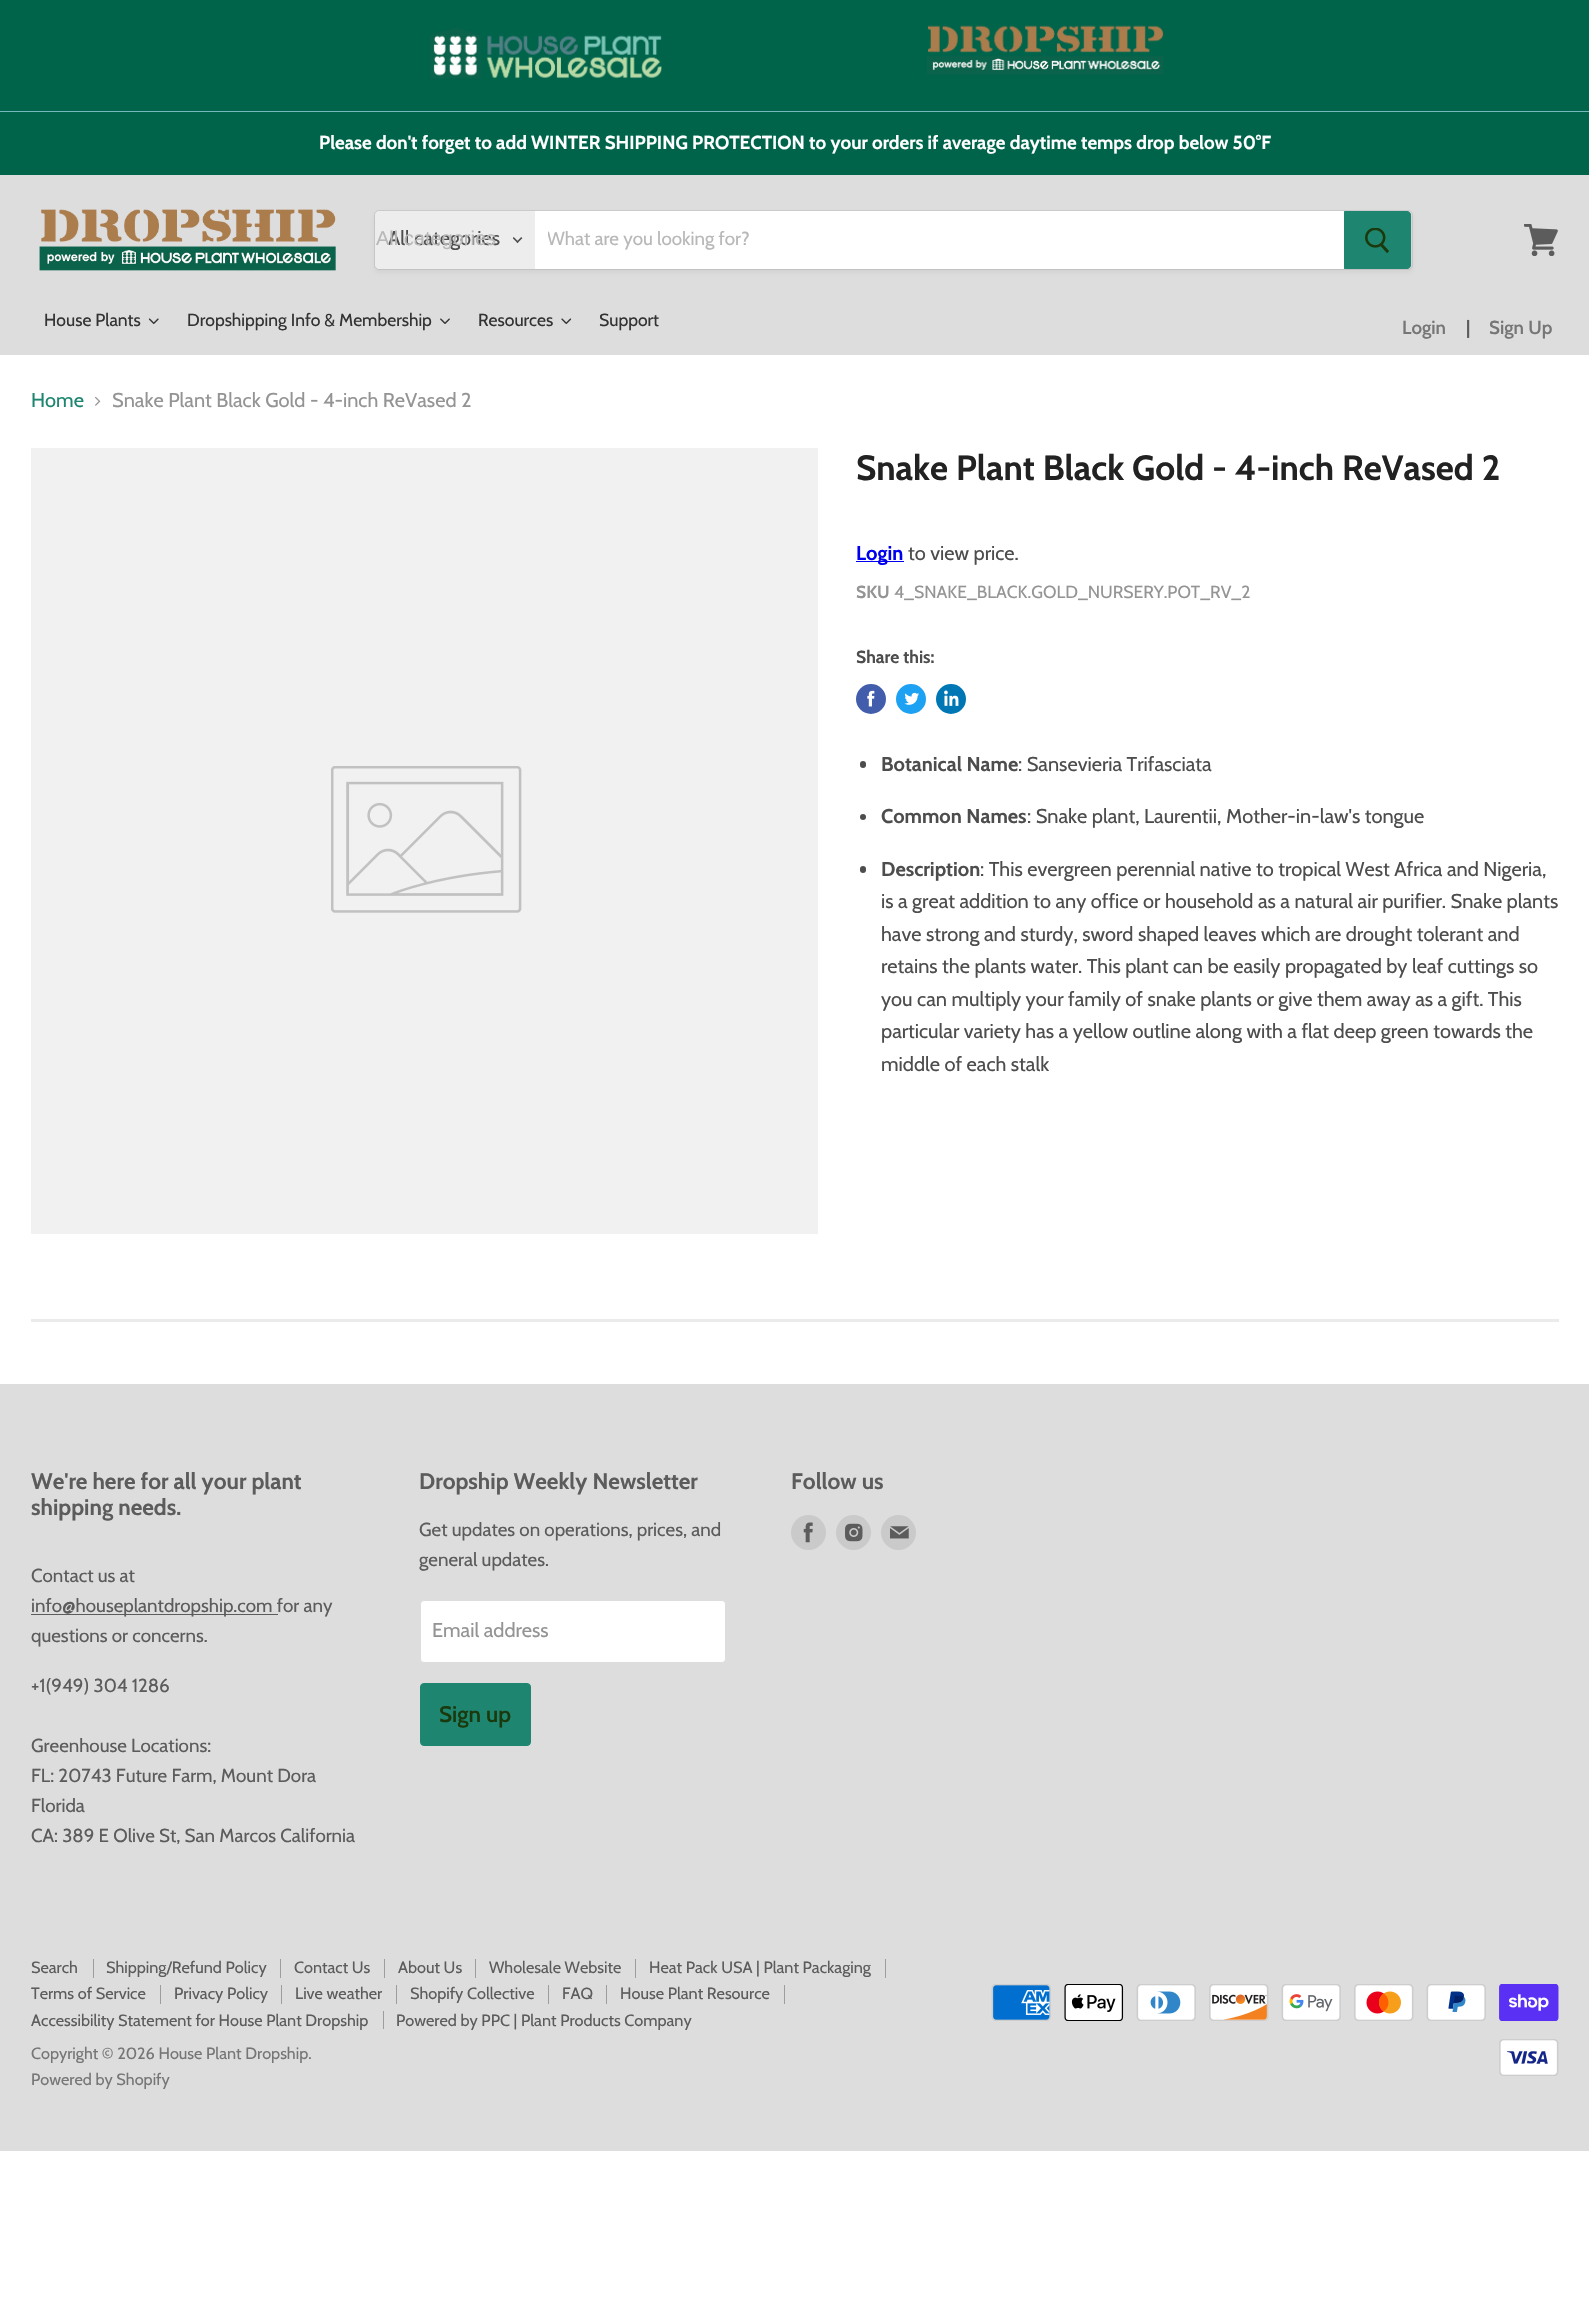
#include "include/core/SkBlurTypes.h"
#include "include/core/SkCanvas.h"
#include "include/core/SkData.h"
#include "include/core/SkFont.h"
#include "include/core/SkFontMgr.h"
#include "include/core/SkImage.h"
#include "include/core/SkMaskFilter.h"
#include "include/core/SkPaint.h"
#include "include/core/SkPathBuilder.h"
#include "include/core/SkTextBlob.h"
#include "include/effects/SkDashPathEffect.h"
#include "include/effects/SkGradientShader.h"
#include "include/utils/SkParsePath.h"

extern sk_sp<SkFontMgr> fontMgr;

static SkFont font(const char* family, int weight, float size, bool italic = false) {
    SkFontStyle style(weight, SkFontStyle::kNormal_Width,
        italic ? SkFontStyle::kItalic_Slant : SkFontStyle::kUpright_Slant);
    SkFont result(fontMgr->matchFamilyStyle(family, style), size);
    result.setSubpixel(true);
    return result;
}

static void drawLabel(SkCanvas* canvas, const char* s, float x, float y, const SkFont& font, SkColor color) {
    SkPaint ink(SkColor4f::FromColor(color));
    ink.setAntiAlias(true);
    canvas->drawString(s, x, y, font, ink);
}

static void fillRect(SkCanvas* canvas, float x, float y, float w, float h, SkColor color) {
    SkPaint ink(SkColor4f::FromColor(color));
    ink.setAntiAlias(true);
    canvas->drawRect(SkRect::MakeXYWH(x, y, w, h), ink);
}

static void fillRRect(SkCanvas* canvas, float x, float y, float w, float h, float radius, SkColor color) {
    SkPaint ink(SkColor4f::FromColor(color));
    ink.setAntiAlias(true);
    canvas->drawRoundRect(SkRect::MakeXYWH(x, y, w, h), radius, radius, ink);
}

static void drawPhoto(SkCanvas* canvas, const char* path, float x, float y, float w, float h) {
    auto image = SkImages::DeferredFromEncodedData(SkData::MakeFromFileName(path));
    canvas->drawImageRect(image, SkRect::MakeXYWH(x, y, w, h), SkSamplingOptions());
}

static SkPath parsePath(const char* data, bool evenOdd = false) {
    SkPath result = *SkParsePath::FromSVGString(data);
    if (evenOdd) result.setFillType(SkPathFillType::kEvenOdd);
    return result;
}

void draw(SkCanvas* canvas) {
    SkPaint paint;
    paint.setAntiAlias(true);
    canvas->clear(0xFFFFFFFF);
    fillRect(canvas, 0, 0, 1589, 175, 0xFF00644B);
    fillRect(canvas, 0, 111, 1589, 1, 0xFF77B8BE);
    drawPhoto(canvas, "assets/img1.png", 430, 27, 232, 52);
    drawPhoto(canvas, "assets/img2.png", 927, 25, 237, 50);
    SkFont font1 = font("Cabin", 700, 18.75f);
    drawLabel(canvas, "Please don't forget to add WINTER SHIPPING PROTECTION to your orders if average daytime temps drop below 50°F", 319, 149, font1, 0xFFFFFFFF);
    fillRect(canvas, 0, 175, 1589, 180, 0xFFDDDDDD);
    drawPhoto(canvas, "assets/img3.png", 39, 209, 297, 62);
    paint.setColor(0x1C808080);
    paint.setMaskFilter(SkMaskFilter::MakeBlur(kNormal_SkBlurStyle, 2));
    canvas->drawRoundRect(SkRect::MakeXYWH(374, 213, 1039, 60), 5, 5, paint);
    paint.setMaskFilter(nullptr);
    paint.setStroke(true);
    paint.setStrokeWidth(1);
    paint.setColor(0x33808080);
    canvas->drawRoundRect(SkRect::MakeXYWH(374.5f, 210.5f, 1038, 59), 4.5f, 4.5f, paint);
    paint.setStroke(false);
    paint.setColor(0xFFEDEDED);
    canvas->drawPath(parsePath("M379 211H535V269H379C377 269 375 267 375 265V215C375 213 377 211 379 211Z"), paint);
    SkFont font2 = font("Cabin", 400, 20);
    drawLabel(canvas, "All categories", 388, 245, font2, 0xFF4D4D4D);
    SkFont font3 = font("Liberation Sans", 400, 20);
    drawLabel(canvas, "All categories", 376, 245, font3, 0xFFB8B8B8);
    drawPhoto(canvas, "assets/img4.png", 513, 237, 10, 6);
    fillRect(canvas, 535, 211, 809, 58, 0xFFFFFFFF);
    canvas->save();
    canvas->clipRect(SkRect::MakeXYWH(548, 228, 783, 22));
    SkFont font4 = font("Cabin", 400, 18.75f);
    drawLabel(canvas, "What are you looking for?", 547, 245, font4, 0xFFB8B8B8);
    canvas->restore();
    paint.setColor(0xFF1E8570);
    canvas->drawPath(parsePath("M1344.5 211.5H1407C1409 211.5 1410.5 213 1410.5 215V265C1410.5 267 1409 268.5 1407 268.5H1344.5Z"), paint);
    paint.setStroke(true);
    canvas->drawPath(parsePath("M1344.5 211.5H1407C1409 211.5 1410.5 213 1410.5 215V265C1410.5 267 1409 268.5 1407 268.5H1344.5Z"), paint);
    drawPhoto(canvas, "assets/img5.png", 1365, 228, 24, 25);
    drawPhoto(canvas, "assets/img6.png", 1524, 224, 34, 32);
    SkFont font5 = font("Cabin", 400, 17.5f);
    drawLabel(canvas, "House Plants", 44, 326, font5, 0xFF333333);
    drawPhoto(canvas, "assets/img7.png", 148, 318, 11, 6);
    drawLabel(canvas, "Dropshipping Info & Membership", 187, 326, font5, 0xFF333333);
    drawPhoto(canvas, "assets/img8.png", 440, 318, 10, 6);
    drawLabel(canvas, "Resources", 478, 326, font5, 0xFF333333);
    drawPhoto(canvas, "assets/img9.png", 561, 318, 11, 6);
    drawLabel(canvas, "Support", 599, 326, font5, 0xFF333333);
    SkFont font6 = font("Cabin", 600, 18.75f);
    drawLabel(canvas, "Login", 1402, 334, font6, 0xFF767676);
    drawLabel(canvas, "|", 1466, 334, font6, 0xFF5C5C5C);
    drawLabel(canvas, "Sign Up", 1489, 334, font6, 0xFF767676);
    drawLabel(canvas, "Home", 31, 407, font2, 0xFF1E8570);
    drawPhoto(canvas, "assets/img10.png", 95, 396, 6, 10);
    drawLabel(canvas, "Snake Plant Black Gold - 4-inch ReVased 2", 112, 407, font2, 0xFF949494);
    fillRect(canvas, 31, 448, 787, 786, 0xFFF1F1F1);
    drawPhoto(canvas, "assets/img11.png", 331, 766, 191, 147);
    SkFont font7 = font("Cabin", 700, 35);
    drawLabel(canvas, "Snake Plant Black Gold - 4-inch ReVased 2", 856, 480, font7, 0xFF222222);
    fillRect(canvas, 856, 561, 48, 1, 0xFF0000EE);
    SkFont font8 = font("Cabin", 700, 20);
    drawLabel(canvas, "Login", 856, 560, font8, 0xFF0000EE);
    drawLabel(canvas, "to view price.", 908, 560, font2, 0xFF4D4D4D);
    SkFont font9 = font("Cabin", 700, 17.5f);
    drawLabel(canvas, "SKU", 856, 598, font9, 0xFF949494);
    drawLabel(canvas, "4_SNAKE_BLACK.GOLD_NURSERY.POT_RV_2", 894, 598, font5, 0xFF949494);
    drawLabel(canvas, "Share this:", 856, 663, font9, 0xFF4D4D4D);
    paint.setStroke(false);
    paint.setColor(0xFF425DAB);
    canvas->drawCircle(871, 699, 15, paint);
    drawPhoto(canvas, "assets/img12.png", 867, 690, 8, 17);
    paint.setColor(0xFF1DA1F2);
    canvas->drawCircle(911, 699, 15, paint);
    drawPhoto(canvas, "assets/img13.png", 904, 692, 15, 13);
    paint.setColor(0xFF0077B5);
    canvas->drawCircle(951, 699, 15, paint);
    drawPhoto(canvas, "assets/img14.png", 944, 690, 15, 16);
    fillRRect(canvas, 860, 761, 6, 7, 3, 0xFF4D4D4D);
    drawLabel(canvas, "Botanical Name", 881, 771, font8, 0xFF4D4D4D);
    drawLabel(canvas, ": Sansevieria Trifasciata", 1018, 771, font2, 0xFF4D4D4D);
    paint.setColor(0xFF4D4D4D);
    canvas->drawCircle(863, 817, 3, paint);
    drawLabel(canvas, "Common Names", 881, 823, font8, 0xFF4D4D4D);
    drawLabel(canvas, ": Snake plant, Laurentii, Mother-in-law's tongue", 1027, 823, font2, 0xFF4D4D4D);
    fillRRect(canvas, 860, 866, 6, 7, 3, 0xFF4D4D4D);
    drawLabel(canvas, "Description", 881, 876, font8, 0xFF4D4D4D);
    drawLabel(canvas, ": This evergreen perennial native to tropical West Africa and Nigeria,", 980, 876, font2, 0xFF4D4D4D);
    drawLabel(canvas, "is a great addition to any office or household as a natural air purifier. Snake plants", 881, 908, font2, 0xFF4D4D4D);
    drawLabel(canvas, "have strong and sturdy, sword shaped leaves which are drought tolerant and", 881, 941, font2, 0xFF4D4D4D);
    drawLabel(canvas, "retains the plants water. This plant can be easily propagated by leaf cuttings so", 881, 973, font2, 0xFF4D4D4D);
    drawLabel(canvas, "you can multiply your family of snake plants or give them away as a gift. This", 881, 1006, font2, 0xFF4D4D4D);
    drawLabel(canvas, "particular variety has a yellow outline along with a flat deep green towards the", 881, 1038, font2, 0xFF4D4D4D);
    drawLabel(canvas, "middle of each stalk", 881, 1071, font2, 0xFF4D4D4D);
    fillRect(canvas, 31, 1319, 1528, 3, 0x29808080);
    fillRect(canvas, 0, 1384, 1589, 767, 0xFFDDDDDD);
    SkFont font10 = font("Cabin", 700, 22.5f);
    drawLabel(canvas, "We're here for all your plant", 31, 1489, font10, 0xFF5C5C5C);
    drawLabel(canvas, "shipping needs.", 31, 1515, font10, 0xFF5C5C5C);
    drawLabel(canvas, "Contact us at", 31, 1582, font4, 0xFF5C5C5C);
    fillRect(canvas, 31, 1614, 247, 1, 0xFF5C5C5C);
    drawLabel(canvas, "info@houseplantdropship.com for any", 31, 1612, font4, 0xFF5C5C5C);
    drawLabel(canvas, "questions or concerns.", 31, 1642, font4, 0xFF5C5C5C);
    drawLabel(canvas, "+1(949) 304 1286", 31, 1692, font4, 0xFF5C5C5C);
    drawLabel(canvas, "Greenhouse Locations:", 31, 1752, font4, 0xFF5C5C5C);
    drawLabel(canvas, "FL: 20743 Future Farm, Mount Dora", 31, 1782, font4, 0xFF5C5C5C);
    drawLabel(canvas, "Florida", 31, 1812, font4, 0xFF5C5C5C);
    drawLabel(canvas, "CA: 389 E Olive St, San Marcos California", 31, 1842, font4, 0xFF5C5C5C);
    drawLabel(canvas, "Dropship Weekly Newsletter", 419, 1489, font10, 0xFF5C5C5C);
    drawLabel(canvas, "Get updates on operations, prices, and", 419, 1536, font4, 0xFF5C5C5C);
    drawLabel(canvas, "general updates.", 419, 1566, font4, 0xFF5C5C5C);
    paint.setColor(0xFFFFFFFF);
    canvas->drawRoundRect(SkRect::MakeXYWH(420.5f, 1600.5f, 305, 62), 3.5f, 3.5f, paint);
    paint.setStroke(true);
    paint.setColor(0xFFDDDDDD);
    canvas->drawRoundRect(SkRect::MakeXYWH(420.5f, 1600.5f, 305, 62), 3.5f, 3.5f, paint);
    drawLabel(canvas, "Email address", 432, 1637, font2, 0xFF949494);
    paint.setStroke(false);
    paint.setColor(0xFF1E8570);
    canvas->drawRoundRect(SkRect::MakeXYWH(420.5f, 1683.5f, 110, 62), 3.5f, 3.5f, paint);
    paint.setStroke(true);
    canvas->drawRoundRect(SkRect::MakeXYWH(420.5f, 1683.5f, 110, 62), 3.5f, 3.5f, paint);
    SkFont font11 = font("Cabin", 600, 22.5f);
    drawLabel(canvas, "Sign up", 439, 1722, font11, 0xFF1A390C);
    drawLabel(canvas, "Follow us", 791, 1489, font10, 0xFF5C5C5C);
    paint.setStroke(false);
    paint.setColor(0xFFCACACA);
    canvas->drawCircle(808.5f, 1532.5f, 17.5f, paint);
    drawPhoto(canvas, "assets/img15.png", 803, 1522, 10, 21);
    canvas->drawCircle(853.5f, 1532.5f, 17.5f, paint);
    drawPhoto(canvas, "assets/img16.png", 845, 1523, 18, 19);
    canvas->drawCircle(898.5f, 1532.5f, 17.5f, paint);
    drawPhoto(canvas, "assets/img17.png", 890, 1526, 19, 13);
    fillRect(canvas, 93, 1959, 1, 19, 0xFF9D9D9D);
    SkFont font12 = font("Cabin", 400, 16.25f);
    drawLabel(canvas, "Search", 31, 1973, font12, 0xFF5C5C5C);
    fillRect(canvas, 280, 1959, 1, 19, 0xFF9D9D9D);
    drawLabel(canvas, "Shipping/Refund Policy", 106, 1973, font12, 0xFF5C5C5C);
    fillRect(canvas, 384, 1959, 1, 19, 0xFF9D9D9D);
    drawLabel(canvas, "Contact Us", 294, 1973, font12, 0xFF5C5C5C);
    fillRect(canvas, 475, 1959, 1, 19, 0xFF9D9D9D);
    drawLabel(canvas, "About Us", 398, 1973, font12, 0xFF5C5C5C);
    fillRect(canvas, 635, 1959, 1, 19, 0xFF9D9D9D);
    drawLabel(canvas, "Wholesale Website", 489, 1973, font12, 0xFF5C5C5C);
    fillRect(canvas, 885, 1959, 1, 19, 0xFF9D9D9D);
    drawLabel(canvas, "Heat Pack USA | Plant Packaging", 649, 1973, font12, 0xFF5C5C5C);
    fillRect(canvas, 160, 1985, 1, 19, 0xFF9D9D9D);
    drawLabel(canvas, "Terms of Service", 31, 1999, font12, 0xFF5C5C5C);
    fillRect(canvas, 281, 1985, 1, 19, 0xFF9D9D9D);
    drawLabel(canvas, "Privacy Policy", 174, 1999, font12, 0xFF5C5C5C);
    fillRect(canvas, 396, 1985, 1, 19, 0xFF9D9D9D);
    drawLabel(canvas, "Live weather", 295, 1999, font12, 0xFF5C5C5C);
    fillRect(canvas, 548, 1985, 1, 19, 0xFF9D9D9D);
    drawLabel(canvas, "Shopify Collective", 410, 1999, font12, 0xFF5C5C5C);
    fillRect(canvas, 606, 1985, 1, 19, 0xFF9D9D9D);
    drawLabel(canvas, "FAQ", 562, 1999, font12, 0xFF5C5C5C);
    fillRect(canvas, 784, 1985, 1, 19, 0xFF9D9D9D);
    drawLabel(canvas, "House Plant Resource", 620, 1999, font12, 0xFF5C5C5C);
    fillRect(canvas, 383, 2011, 1, 18, 0xFF9D9D9D);
    drawLabel(canvas, "Accessibility Statement for House Plant Dropship", 31, 2026, font12, 0xFF5C5C5C);
    drawLabel(canvas, "Powered by PPC | Plant Products Company", 396, 2026, font12, 0xFF5C5C5C);
    drawLabel(canvas, "Copyright © 2026 House Plant Dropship.", 31, 2059, font12, 0xFF767676);
    drawLabel(canvas, "Powered by Shopify", 31, 2085, font12, 0xFF767676);
    drawPhoto(canvas, "assets/img18.png", 991, 1984, 60, 37);
    drawPhoto(canvas, "assets/img19.png", 1064, 1984, 60, 37);
    drawPhoto(canvas, "assets/img20.png", 1136, 1984, 60, 37);
    drawPhoto(canvas, "assets/img21.png", 1209, 1984, 60, 37);
    drawPhoto(canvas, "assets/img22.png", 1281, 1984, 60, 37);
    drawPhoto(canvas, "assets/img23.png", 1354, 1984, 60, 37);
    drawPhoto(canvas, "assets/img24.png", 1426, 1984, 60, 37);
    drawPhoto(canvas, "assets/img25.png", 1499, 1984, 60, 37);
    drawPhoto(canvas, "assets/img26.png", 1499, 2039, 60, 37);
}
